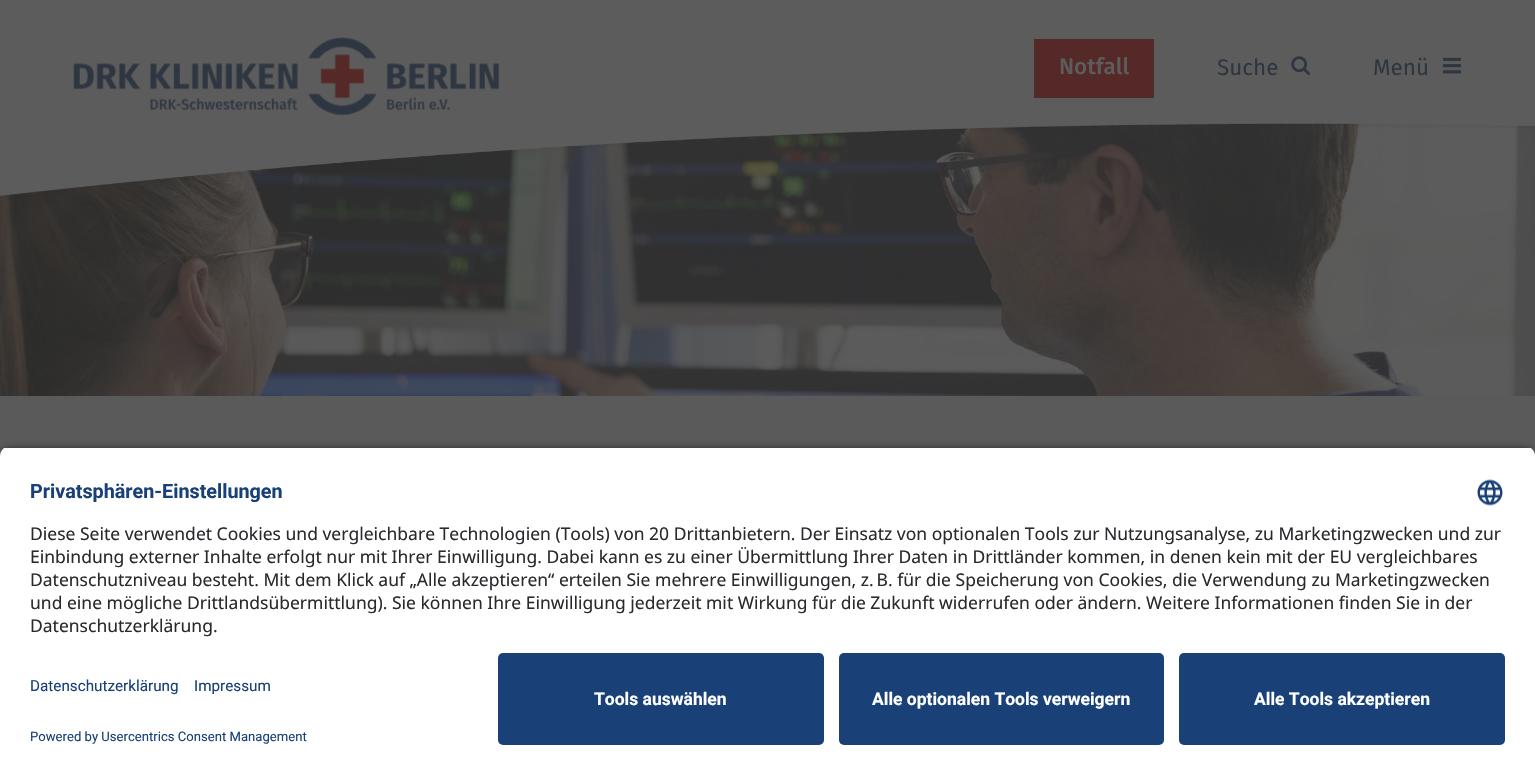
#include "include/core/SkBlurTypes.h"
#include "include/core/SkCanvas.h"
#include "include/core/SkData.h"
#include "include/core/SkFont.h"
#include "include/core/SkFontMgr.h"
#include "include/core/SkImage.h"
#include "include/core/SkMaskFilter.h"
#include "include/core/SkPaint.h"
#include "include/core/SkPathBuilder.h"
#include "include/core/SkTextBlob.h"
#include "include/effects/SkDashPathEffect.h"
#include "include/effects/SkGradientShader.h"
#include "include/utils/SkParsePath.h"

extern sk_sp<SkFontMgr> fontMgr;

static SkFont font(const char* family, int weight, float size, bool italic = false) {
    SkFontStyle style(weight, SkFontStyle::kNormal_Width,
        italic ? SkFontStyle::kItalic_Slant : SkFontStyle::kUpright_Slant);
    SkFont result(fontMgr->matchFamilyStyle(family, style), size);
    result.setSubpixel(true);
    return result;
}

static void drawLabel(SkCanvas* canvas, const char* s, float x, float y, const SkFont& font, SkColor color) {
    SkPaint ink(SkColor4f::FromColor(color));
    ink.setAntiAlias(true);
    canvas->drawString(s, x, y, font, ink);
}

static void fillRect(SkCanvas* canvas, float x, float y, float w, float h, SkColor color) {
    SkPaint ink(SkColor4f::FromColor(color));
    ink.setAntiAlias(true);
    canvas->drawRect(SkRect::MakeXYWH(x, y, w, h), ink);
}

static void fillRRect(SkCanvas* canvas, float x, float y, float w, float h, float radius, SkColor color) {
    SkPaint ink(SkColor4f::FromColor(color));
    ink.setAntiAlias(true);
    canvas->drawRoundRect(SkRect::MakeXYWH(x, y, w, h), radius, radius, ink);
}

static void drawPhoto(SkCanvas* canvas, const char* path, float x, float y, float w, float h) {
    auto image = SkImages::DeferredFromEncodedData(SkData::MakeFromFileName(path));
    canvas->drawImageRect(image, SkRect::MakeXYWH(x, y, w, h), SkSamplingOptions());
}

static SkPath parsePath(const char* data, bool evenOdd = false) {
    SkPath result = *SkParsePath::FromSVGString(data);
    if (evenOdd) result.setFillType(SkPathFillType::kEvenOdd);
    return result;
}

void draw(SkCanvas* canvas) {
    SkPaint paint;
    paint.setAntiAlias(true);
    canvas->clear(0xFFFFFFFF);
    fillRect(canvas, 0, 0, 1535, 123, 0xFF5C5C5C);
    drawPhoto(canvas, "assets/img1.png", 73, 37, 426, 79);
    fillRect(canvas, 1034, 39, 120, 59, 0xFF562929);
    SkFont font1 = font("Fira Sans", 500, 22.5f);
    drawLabel(canvas, "Notfall", 1059, 74, font1, 0xFF5C5C5C);
    SkFont font2 = font("Fira Sans", 400, 22.5f);
    drawLabel(canvas, "Suche", 1217, 75, font2, 0xFF2E3641);
    drawPhoto(canvas, "assets/img2.png", 1291, 56, 19, 19);
    drawLabel(canvas, "Menü", 1373, 75, font2, 0xFF2E3641);
    drawPhoto(canvas, "assets/img3.png", 1443, 57, 18, 17);
    drawPhoto(canvas, "assets/img5.png", 0, 123, 1535, 273);
    drawPhoto(canvas, "assets/img4.png", 0, 123, 1535, 76);
    fillRect(canvas, 0, 396, 1535, 60, 0xFF5A5A5A);
    paint.setColor(0xCC000000);
    paint.setMaskFilter(SkMaskFilter::MakeBlur(kNormal_SkBlurStyle, 4.5f));
    canvas->drawRoundRect(SkRect::MakeXYWH(0, 450, 1535, 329), 10, 10, paint);
    paint.setMaskFilter(nullptr);
    canvas->save();
    canvas->clipPath(parsePath("M10 446H1525C1530.5 446 1535 450.5 1535 456V643H0V456C0 450.5 4.5 446 10 446Z"), true);
    fillRect(canvas, 0, 448, 1535, 195, 0xFFFFFFFF);
    canvas->restore();
    SkFont font3 = font("Roboto", 700, 19.75f);
    drawLabel(canvas, "Privatsphären-Einstellungen", 30, 498, font3, 0xFF194178);
    drawPhoto(canvas, "assets/img6.png", 1477, 479, 26, 27);
    SkFont font4 = font("Noto Sans", 400, 17.5f);
    drawLabel(canvas, "Diese Seite verwendet Cookies und vergleichbare Technologien (Tools) von 20 Drittanbietern. Der Einsatz von optionalen Tools zur Nutzungsanalyse, zu Marketingzwecken und zur", 30, 540, font4, 0xFF292A2E);
    drawLabel(canvas, "Einbindung externer Inhalte erfolgt nur mit Ihrer Einwilligung. Dabei kann es zu einer Übermittlung Ihrer Daten in Drittländer kommen, in denen kein mit der EU vergleichbares", 30, 563, font4, 0xFF292A2E);
    drawLabel(canvas, "Datenschutzniveau besteht. Mit dem Klick auf „Alle akzeptieren“ erteilen Sie mehrere Einwilligungen, z. B. für die Speicherung von Cookies, die Verwendung zu Marketingzwecken", 30, 586, font4, 0xFF292A2E);
    drawLabel(canvas, "und eine mögliche Drittlandsübermittlung). Sie können Ihre Einwilligung jederzeit mit Wirkung für die Zukunft widerrufen oder ändern. Weitere Informationen finden Sie in der", 30, 609, font4, 0xFF292A2E);
    drawLabel(canvas, "Datenschutzerklärung.", 30, 632, font4, 0xFF292A2E);
    fillRect(canvas, 0, 643, 1535, 132, 0xFFFFFFFF);
    SkFont font5 = font("Roboto", 400, 15.25f);
    drawLabel(canvas, "Datenschutzerklärung", 30, 691, font5, 0xFF194178);
    drawLabel(canvas, "Impressum", 194, 691, font5, 0xFF194178);
    SkFont font6 = font("Roboto", 400, 13.1f);
    drawLabel(canvas, "Powered by Usercentrics Consent Management", 30, 741, font6, 0xFF194178);
    fillRRect(canvas, 498, 653, 326, 92, 5, 0xFF194178);
    SkFont font7 = font("Roboto", 700, 17.5f);
    drawLabel(canvas, "Tools auswählen", 594, 705, font7, 0xFFFFFFFF);
    fillRRect(canvas, 839, 653, 325, 92, 5, 0xFF194178);
    drawLabel(canvas, "Alle optionalen Tools verweigern", 872, 705, font7, 0xFFFFFFFF);
    fillRRect(canvas, 1179, 653, 326, 92, 5, 0xFF194178);
    drawLabel(canvas, "Alle Tools akzeptieren", 1254, 705, font7, 0xFFFFFFFF);
}
